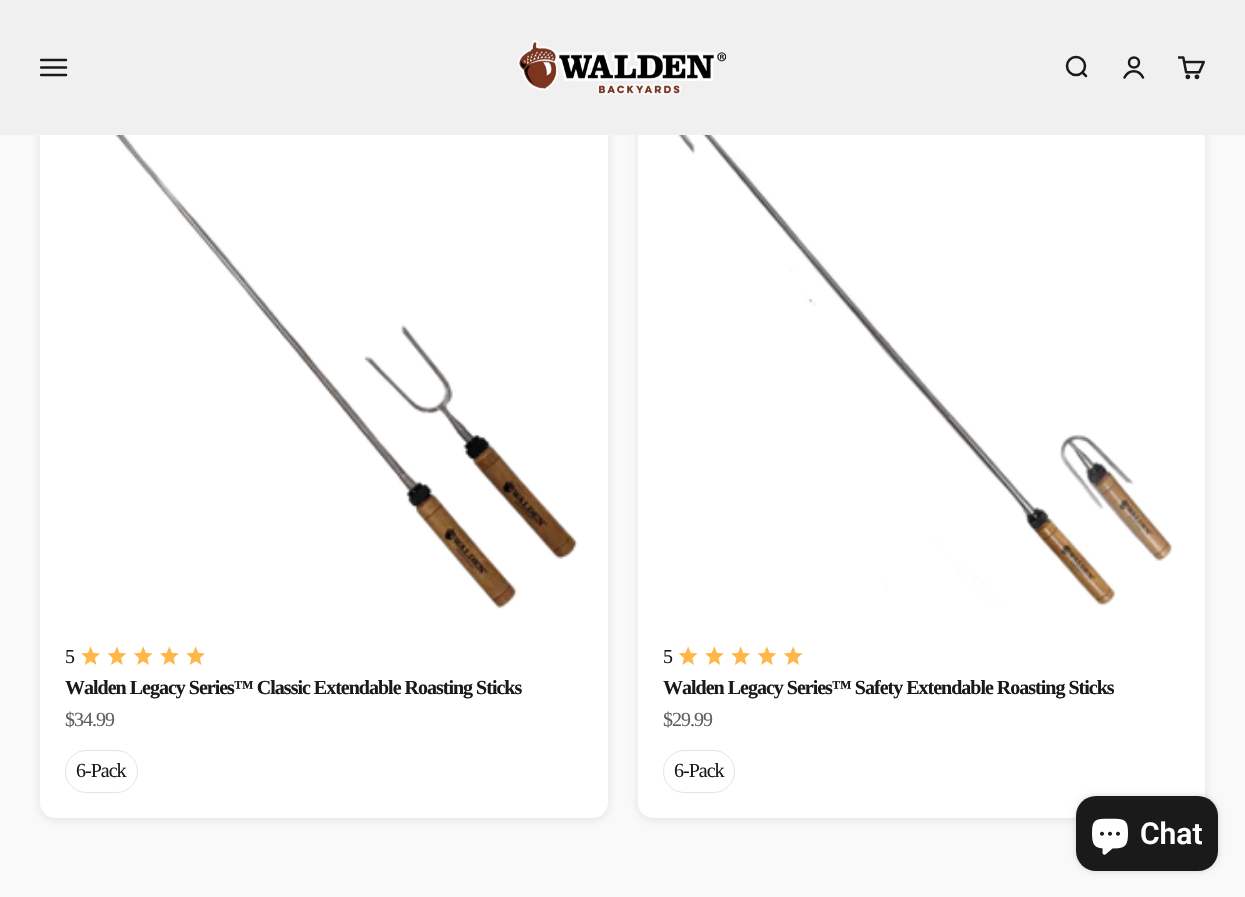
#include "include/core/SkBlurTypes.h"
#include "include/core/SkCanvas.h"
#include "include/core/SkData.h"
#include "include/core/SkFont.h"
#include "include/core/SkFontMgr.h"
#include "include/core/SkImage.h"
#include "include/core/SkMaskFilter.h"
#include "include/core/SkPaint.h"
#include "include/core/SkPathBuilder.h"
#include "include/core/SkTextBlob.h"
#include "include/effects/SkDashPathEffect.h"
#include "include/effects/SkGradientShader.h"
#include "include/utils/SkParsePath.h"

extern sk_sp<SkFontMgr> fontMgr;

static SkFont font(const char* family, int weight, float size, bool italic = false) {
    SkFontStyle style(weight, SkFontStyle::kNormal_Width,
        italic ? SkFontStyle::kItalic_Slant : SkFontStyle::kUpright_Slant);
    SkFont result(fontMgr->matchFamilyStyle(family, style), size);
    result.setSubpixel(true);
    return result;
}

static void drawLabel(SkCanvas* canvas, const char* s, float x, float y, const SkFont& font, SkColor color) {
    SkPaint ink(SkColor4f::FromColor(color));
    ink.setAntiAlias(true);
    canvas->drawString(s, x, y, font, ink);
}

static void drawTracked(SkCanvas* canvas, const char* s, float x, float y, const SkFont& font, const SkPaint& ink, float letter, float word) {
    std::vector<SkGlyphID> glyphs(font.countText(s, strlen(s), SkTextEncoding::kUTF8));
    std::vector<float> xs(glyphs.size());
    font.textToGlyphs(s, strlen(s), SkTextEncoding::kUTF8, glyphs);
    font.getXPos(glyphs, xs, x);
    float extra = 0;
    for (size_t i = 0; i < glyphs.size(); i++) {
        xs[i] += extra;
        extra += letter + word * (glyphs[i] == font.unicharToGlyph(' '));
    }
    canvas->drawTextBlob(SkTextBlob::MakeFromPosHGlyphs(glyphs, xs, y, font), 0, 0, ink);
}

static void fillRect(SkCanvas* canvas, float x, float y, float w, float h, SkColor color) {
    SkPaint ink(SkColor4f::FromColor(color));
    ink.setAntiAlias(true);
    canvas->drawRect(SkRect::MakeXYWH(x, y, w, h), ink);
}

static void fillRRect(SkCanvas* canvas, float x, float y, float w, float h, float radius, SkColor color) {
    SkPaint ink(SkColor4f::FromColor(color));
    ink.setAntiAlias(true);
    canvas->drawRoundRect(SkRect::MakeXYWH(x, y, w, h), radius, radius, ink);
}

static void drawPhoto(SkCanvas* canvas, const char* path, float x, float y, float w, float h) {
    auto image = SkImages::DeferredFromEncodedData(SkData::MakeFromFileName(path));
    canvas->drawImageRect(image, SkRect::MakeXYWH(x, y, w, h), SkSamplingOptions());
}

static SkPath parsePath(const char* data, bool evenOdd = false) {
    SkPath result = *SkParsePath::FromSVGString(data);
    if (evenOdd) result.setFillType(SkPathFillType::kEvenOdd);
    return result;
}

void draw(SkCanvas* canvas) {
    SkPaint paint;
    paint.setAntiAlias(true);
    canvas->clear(0xFFF9F9F9);
    paint.setColor(0x1A1A1A1A);
    paint.setMaskFilter(SkMaskFilter::MakeBlur(kNormal_SkBlurStyle, 5));
    canvas->drawRoundRect(SkRect::MakeXYWH(40, 50, 568, 770), 15, 15, paint);
    paint.setMaskFilter(nullptr);
    fillRRect(canvas, 40, 48, 568, 770, 15, 0xFFFFFFFF);
    paint.setMaskFilter(SkMaskFilter::MakeBlur(kNormal_SkBlurStyle, 5));
    canvas->drawRoundRect(SkRect::MakeXYWH(638, 50, 567, 770), 15, 15, paint);
    paint.setMaskFilter(nullptr);
    fillRRect(canvas, 638, 48, 567, 770, 15, 0xFFFFFFFF);
    fillRect(canvas, 0, 0, 1245, 135, 0xFFF0F0F0);
    canvas->save();
    canvas->clipRect(SkRect::MakeXYWH(40, 54, 28, 27));
    paint.setStroke(true);
    paint.setStrokeWidth(2.5f);
    paint.setStrokeCap(SkPaint::kRound_Cap);
    paint.setColor(0xFF1A1A1A);
    canvas->drawPath(parsePath("M41 60H66M41 67.5H66M41 75H66"), paint);
    canvas->restore();
    drawPhoto(canvas, "assets/img1.png", 517, 40, 210, 55);
    paint.setStrokeCap(SkPaint::kButt_Cap);
    canvas->drawCircle(1076, 66, 9, paint);
    paint.setStrokeCap(SkPaint::kRound_Cap);
    paint.setStrokeJoin(SkPaint::kRound_Join);
    canvas->drawPath(parsePath("M1082.5 72.5L1086 76"), paint);
    paint.setStrokeCap(SkPaint::kButt_Cap);
    paint.setStrokeJoin(SkPaint::kMiter_Join);
    canvas->drawCircle(1134, 62.5f, 5, paint);
    paint.setStrokeCap(SkPaint::kRound_Cap);
    canvas->drawPath(parsePath("M1124.5 77.5C1128.5 69 1139 69 1143 77.5"), paint);
    drawPhoto(canvas, "assets/img2.png", 1178, 56, 27, 24);
    drawPhoto(canvas, "assets/img3.png", 115, 135, 463, 474);
    SkFont font1 = font("Liberation Serif", 400, 20);
    paint.setStroke(false);
    drawTracked(canvas, "5", 65, 663, font1, paint, -1, 0);
    drawPhoto(canvas, "assets/img4.png", 81, 646, 19, 19);
    drawPhoto(canvas, "assets/img5.png", 108, 646, 18, 19);
    drawPhoto(canvas, "assets/img6.png", 134, 646, 19, 19);
    drawPhoto(canvas, "assets/img7.png", 160, 646, 19, 19);
    drawPhoto(canvas, "assets/img4.png", 186, 646, 19, 19);
    SkFont font2 = font("Liberation Serif", 700, 20);
    drawTracked(canvas, "Walden Legacy Series™ Classic Extendable Roasting Sticks", 65, 694, font2, paint, -1, 0);
    paint.setColor(0xFF5F5F5F);
    drawTracked(canvas, "$34.99", 65, 726, font1, paint, -1, 0);
    paint.setStroke(true);
    paint.setStrokeWidth(1);
    paint.setStrokeCap(SkPaint::kButt_Cap);
    paint.setColor(0xFFE4E4E4);
    canvas->drawRoundRect(SkRect::MakeXYWH(65.5f, 750.5f, 72, 42), 21, 21, paint);
    paint.setStroke(false);
    paint.setColor(0xFF1A1A1A);
    drawTracked(canvas, "6-Pack", 76, 777, font1, paint, -1, 0);
    drawPhoto(canvas, "assets/img8.png", 678, 135, 495, 471);
    drawTracked(canvas, "5", 663, 663, font1, paint, -1, 0);
    drawPhoto(canvas, "assets/img6.png", 679, 646, 19, 19);
    drawPhoto(canvas, "assets/img7.png", 705, 646, 19, 19);
    drawPhoto(canvas, "assets/img4.png", 731, 646, 19, 19);
    drawPhoto(canvas, "assets/img5.png", 758, 646, 18, 19);
    drawPhoto(canvas, "assets/img6.png", 784, 646, 19, 19);
    drawTracked(canvas, "Walden Legacy Series™ Safety Extendable Roasting Sticks", 663, 694, font2, paint, -1, 0);
    paint.setColor(0xFF5F5F5F);
    drawTracked(canvas, "$29.99", 663, 726, font1, paint, -1, 0);
    paint.setStroke(true);
    paint.setColor(0xFFE4E4E4);
    canvas->drawRoundRect(SkRect::MakeXYWH(663.5f, 750.5f, 71, 42), 21, 21, paint);
    paint.setStroke(false);
    paint.setColor(0xFF1A1A1A);
    drawTracked(canvas, "6-Pack", 674, 777, font1, paint, -1, 0);
    paint.setColor(0x26000000);
    paint.setMaskFilter(SkMaskFilter::MakeBlur(kNormal_SkBlurStyle, 3));
    canvas->drawRoundRect(SkRect::MakeXYWH(1076, 796, 142, 75), 20, 20, paint);
    paint.setMaskFilter(nullptr);
    fillRRect(canvas, 1076, 796, 142, 75, 20, 0xFF1A1A1A);
    drawPhoto(canvas, "assets/img9.png", 1092, 818, 36, 37);
    SkFont font3 = font("Roboto", 600, 30);
    drawLabel(canvas, "Chat", 1140, 844, font3, 0xFFFFFFFF);
}
